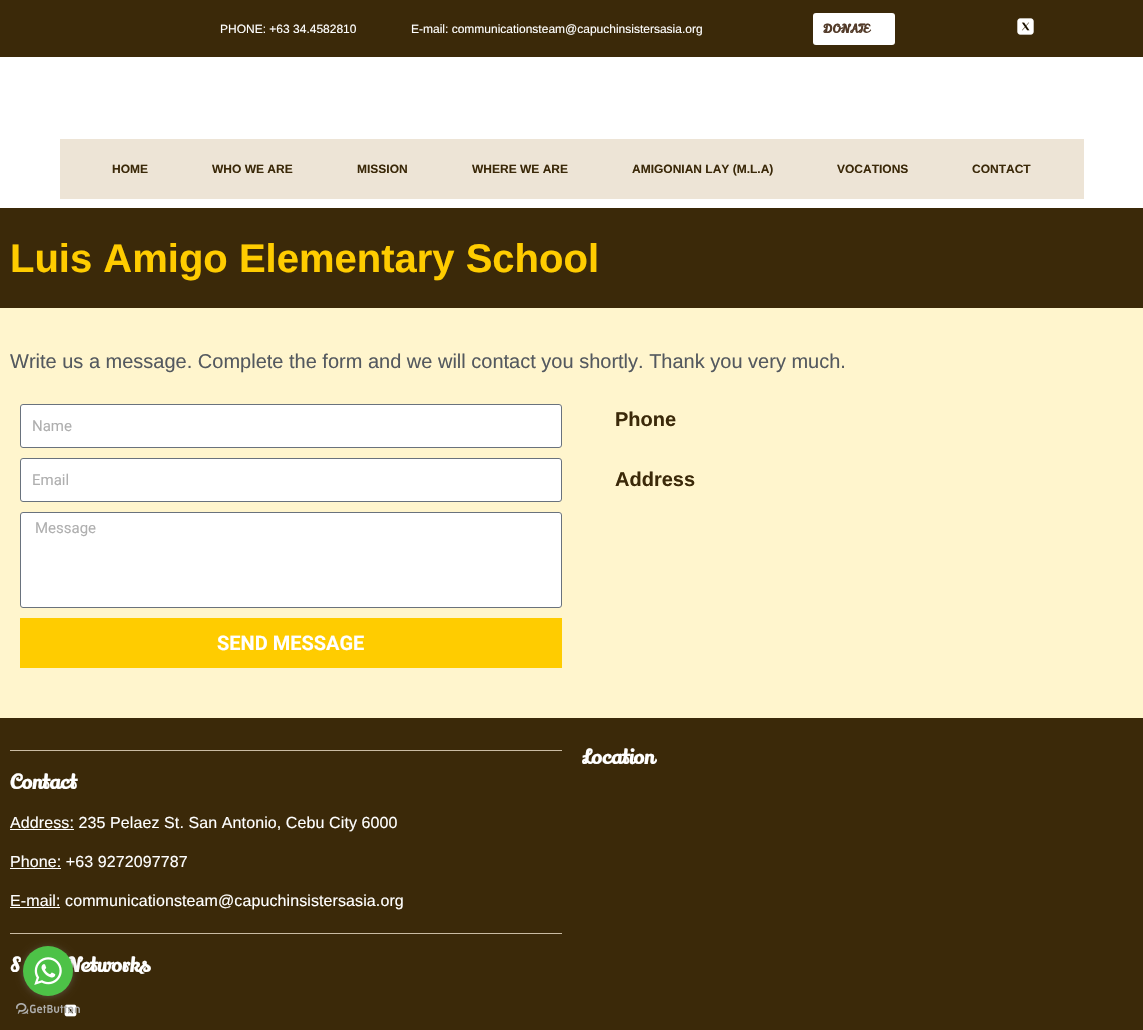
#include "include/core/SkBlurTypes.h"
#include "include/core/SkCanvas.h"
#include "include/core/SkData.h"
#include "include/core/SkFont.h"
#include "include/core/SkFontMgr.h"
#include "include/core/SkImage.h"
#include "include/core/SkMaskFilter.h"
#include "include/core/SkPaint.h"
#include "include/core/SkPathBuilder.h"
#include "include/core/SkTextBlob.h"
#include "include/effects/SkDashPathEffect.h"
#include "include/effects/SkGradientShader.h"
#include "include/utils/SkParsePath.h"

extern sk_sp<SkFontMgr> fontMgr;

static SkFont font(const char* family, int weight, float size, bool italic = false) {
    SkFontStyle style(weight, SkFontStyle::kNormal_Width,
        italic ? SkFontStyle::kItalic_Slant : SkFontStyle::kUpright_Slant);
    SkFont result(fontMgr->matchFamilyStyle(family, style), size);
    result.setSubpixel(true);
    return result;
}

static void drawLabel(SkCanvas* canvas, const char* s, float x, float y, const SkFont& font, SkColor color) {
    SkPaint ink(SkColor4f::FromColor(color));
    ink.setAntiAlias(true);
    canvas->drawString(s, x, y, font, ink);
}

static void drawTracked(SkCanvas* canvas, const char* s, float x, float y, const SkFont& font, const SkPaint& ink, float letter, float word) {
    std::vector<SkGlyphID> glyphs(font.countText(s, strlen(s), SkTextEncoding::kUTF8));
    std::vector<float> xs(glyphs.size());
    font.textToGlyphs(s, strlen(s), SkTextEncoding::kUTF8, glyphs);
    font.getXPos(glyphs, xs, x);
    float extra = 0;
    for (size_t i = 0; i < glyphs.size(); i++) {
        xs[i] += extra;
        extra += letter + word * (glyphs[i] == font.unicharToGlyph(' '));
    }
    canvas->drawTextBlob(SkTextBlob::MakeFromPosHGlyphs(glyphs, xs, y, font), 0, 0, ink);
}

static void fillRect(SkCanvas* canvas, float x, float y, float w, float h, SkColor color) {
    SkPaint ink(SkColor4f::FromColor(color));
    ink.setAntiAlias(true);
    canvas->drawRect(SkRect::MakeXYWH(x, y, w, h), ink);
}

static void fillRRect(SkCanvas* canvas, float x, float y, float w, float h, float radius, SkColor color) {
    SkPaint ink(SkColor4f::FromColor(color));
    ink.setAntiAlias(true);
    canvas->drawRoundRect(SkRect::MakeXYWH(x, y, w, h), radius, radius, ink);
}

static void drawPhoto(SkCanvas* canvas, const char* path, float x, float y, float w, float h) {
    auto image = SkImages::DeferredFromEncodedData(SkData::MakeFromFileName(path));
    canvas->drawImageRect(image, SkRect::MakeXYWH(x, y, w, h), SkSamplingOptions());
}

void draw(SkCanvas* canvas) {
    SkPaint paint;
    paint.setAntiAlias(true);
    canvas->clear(0xFFFFFFFF);
    fillRect(canvas, 0, 0, 1143, 57, 0xFF3B2909);
    SkFont font1 = font("Liberation Sans", 400, 12);
    drawLabel(canvas, "PHONE: +63 34.4582810", 220, 33, font1, 0xFFFFFFFF);
    drawLabel(canvas, "E-mail: communicationsteam@capuchinsistersasia.org", 411, 33, font1, 0xFFFFFFFF);
    fillRRect(canvas, 813, 13, 82, 32, 3, 0xFFFFFFFF);
    SkFont font2 = font("Lily Script One", 700, 12);
    drawLabel(canvas, "DONATE", 823, 33, font2, 0xFF523A28);
    drawPhoto(canvas, "assets/img1.png", 1017, 18, 17, 17);
    fillRect(canvas, 60, 139, 1024, 60, 0xFFEDE4D6);
    SkFont font3 = font("Liberation Sans", 700, 12);
    drawLabel(canvas, "HOME", 112, 173, font3, 0xFF3B2909);
    drawLabel(canvas, "WHO WE ARE", 212, 173, font3, 0xFF3B2909);
    drawLabel(canvas, "MISSION", 357, 173, font3, 0xFF3B2909);
    drawLabel(canvas, "WHERE WE ARE", 472, 173, font3, 0xFF3B2909);
    drawLabel(canvas, "AMIGONIAN LAY (M.L.A)", 632, 173, font3, 0xFF3B2909);
    drawLabel(canvas, "VOCATIONS", 837, 173, font3, 0xFF3B2909);
    drawLabel(canvas, "CONTACT", 972, 173, font3, 0xFF3B2909);
    fillRect(canvas, 0, 208, 1143, 100, 0xFF3B2909);
    SkFont font4 = font("Liberation Sans", 700, 40);
    drawLabel(canvas, "Luis Amigo Elementary School", 10, 272, font4, 0xFFFFCC00);
    fillRect(canvas, 0, 308, 1143, 410, 0xFFFFF5CD);
    SkFont font5 = font("Liberation Sans", 400, 20);
    drawLabel(canvas, "Write us a message. Complete the form and we will contact you shortly. Thank you very much.", 10, 368, font5, 0xFF54595F);
    paint.setColor(0xFFFFFFFF);
    canvas->drawRoundRect(SkRect::MakeXYWH(20.5f, 404.5f, 541, 43), 2.5f, 2.5f, paint);
    paint.setStroke(true);
    paint.setStrokeWidth(1);
    paint.setColor(0xFF69727D);
    canvas->drawRoundRect(SkRect::MakeXYWH(20.5f, 404.5f, 541, 43), 2.5f, 2.5f, paint);
    SkFont font6 = font("Roboto", 400, 15);
    drawLabel(canvas, "Name", 32, 431, font6, 0xFFAFAFAF);
    paint.setStroke(false);
    paint.setColor(0xFFFFFFFF);
    canvas->drawRoundRect(SkRect::MakeXYWH(20.5f, 458.5f, 541, 43), 2.5f, 2.5f, paint);
    paint.setStroke(true);
    paint.setColor(0xFF69727D);
    canvas->drawRoundRect(SkRect::MakeXYWH(20.5f, 458.5f, 541, 43), 2.5f, 2.5f, paint);
    drawLabel(canvas, "Email", 32, 485, font6, 0xFFAFAFAF);
    paint.setStroke(false);
    paint.setColor(0xFFFFFFFF);
    canvas->drawRoundRect(SkRect::MakeXYWH(20.5f, 512.5f, 541, 95), 2.5f, 2.5f, paint);
    paint.setStroke(true);
    paint.setColor(0xFF69727D);
    canvas->drawRoundRect(SkRect::MakeXYWH(20.5f, 512.5f, 541, 95), 2.5f, 2.5f, paint);
    drawLabel(canvas, "Message", 35, 533, font6, 0xFFAFAFAF);
    fillRect(canvas, 20, 618, 542, 50, 0xFFFFCC00);
    SkFont font7 = font("Roboto", 700, 20);
    drawLabel(canvas, "SEND MESSAGE", 217, 650, font7, 0xFFFFFFFF);
    SkFont font8 = font("Liberation Sans", 700, 20);
    drawLabel(canvas, "Phone", 615, 426, font8, 0xFF3B2909);
    drawLabel(canvas, "Address", 615, 486, font8, 0xFF3B2909);
    fillRect(canvas, 0, 718, 1143, 312, 0xFF3B2909);
    SkFont font9 = font("Lily Script One", 700, 20);
    drawLabel(canvas, "Location", 582, 764, font9, 0xFFFFFFFF);
    fillRect(canvas, 10, 750, 552, 1, 0xFFCABBA3);
    drawLabel(canvas, "Contact", 10, 789, font9, 0xFFFFFFFF);
    fillRect(canvas, 10, 829, 64, 1, 0xFFFFFFFF);
    SkFont font10 = font("Liberation Sans", 400, 16);
    paint.setStroke(false);
    paint.setColor(0xFFFFFFFF);
    drawTracked(canvas, "Address: 235 Pelaez St. San Antonio, Cebu City 6000", 10, 828, font10, paint, 0.1f, 0);
    drawTracked(canvas, "Phone: +63 9272097787", 10, 867, font10, paint, 0.1f, 0);
    fillRect(canvas, 10, 868, 51, 1, 0xFFFFFFFF);
    fillRect(canvas, 10, 907, 50, 1, 0xFFFFFFFF);
    drawTracked(canvas, "E-mail: communicationsteam@capuchinsistersasia.org", 10, 906, font10, paint, 0.1f, 0);
    fillRect(canvas, 10, 933, 552, 1, 0xFFCABBA3);
    drawLabel(canvas, "S", 10, 972, font9, 0xFFFFFFFF);
    drawLabel(canvas, "Networks", 66, 972, font9, 0xFFFFFFFF);
    drawPhoto(canvas, "assets/img2.png", 64, 1004, 13, 13);
    drawPhoto(canvas, "assets/img4.png", 16, 1003, 64, 11);
    paint.setColor(0x66888888);
    paint.setMaskFilter(SkMaskFilter::MakeBlur(kNormal_SkBlurStyle, 3.5f));
    canvas->drawRoundRect(SkRect::MakeXYWH(23, 947, 50, 50), 25, 25, paint);
    paint.setMaskFilter(nullptr);
    paint.setColor(0xFF4DC247);
    canvas->drawCircle(48, 971, 25, paint);
    drawPhoto(canvas, "assets/img3.png", 34, 957, 28, 28);
}
